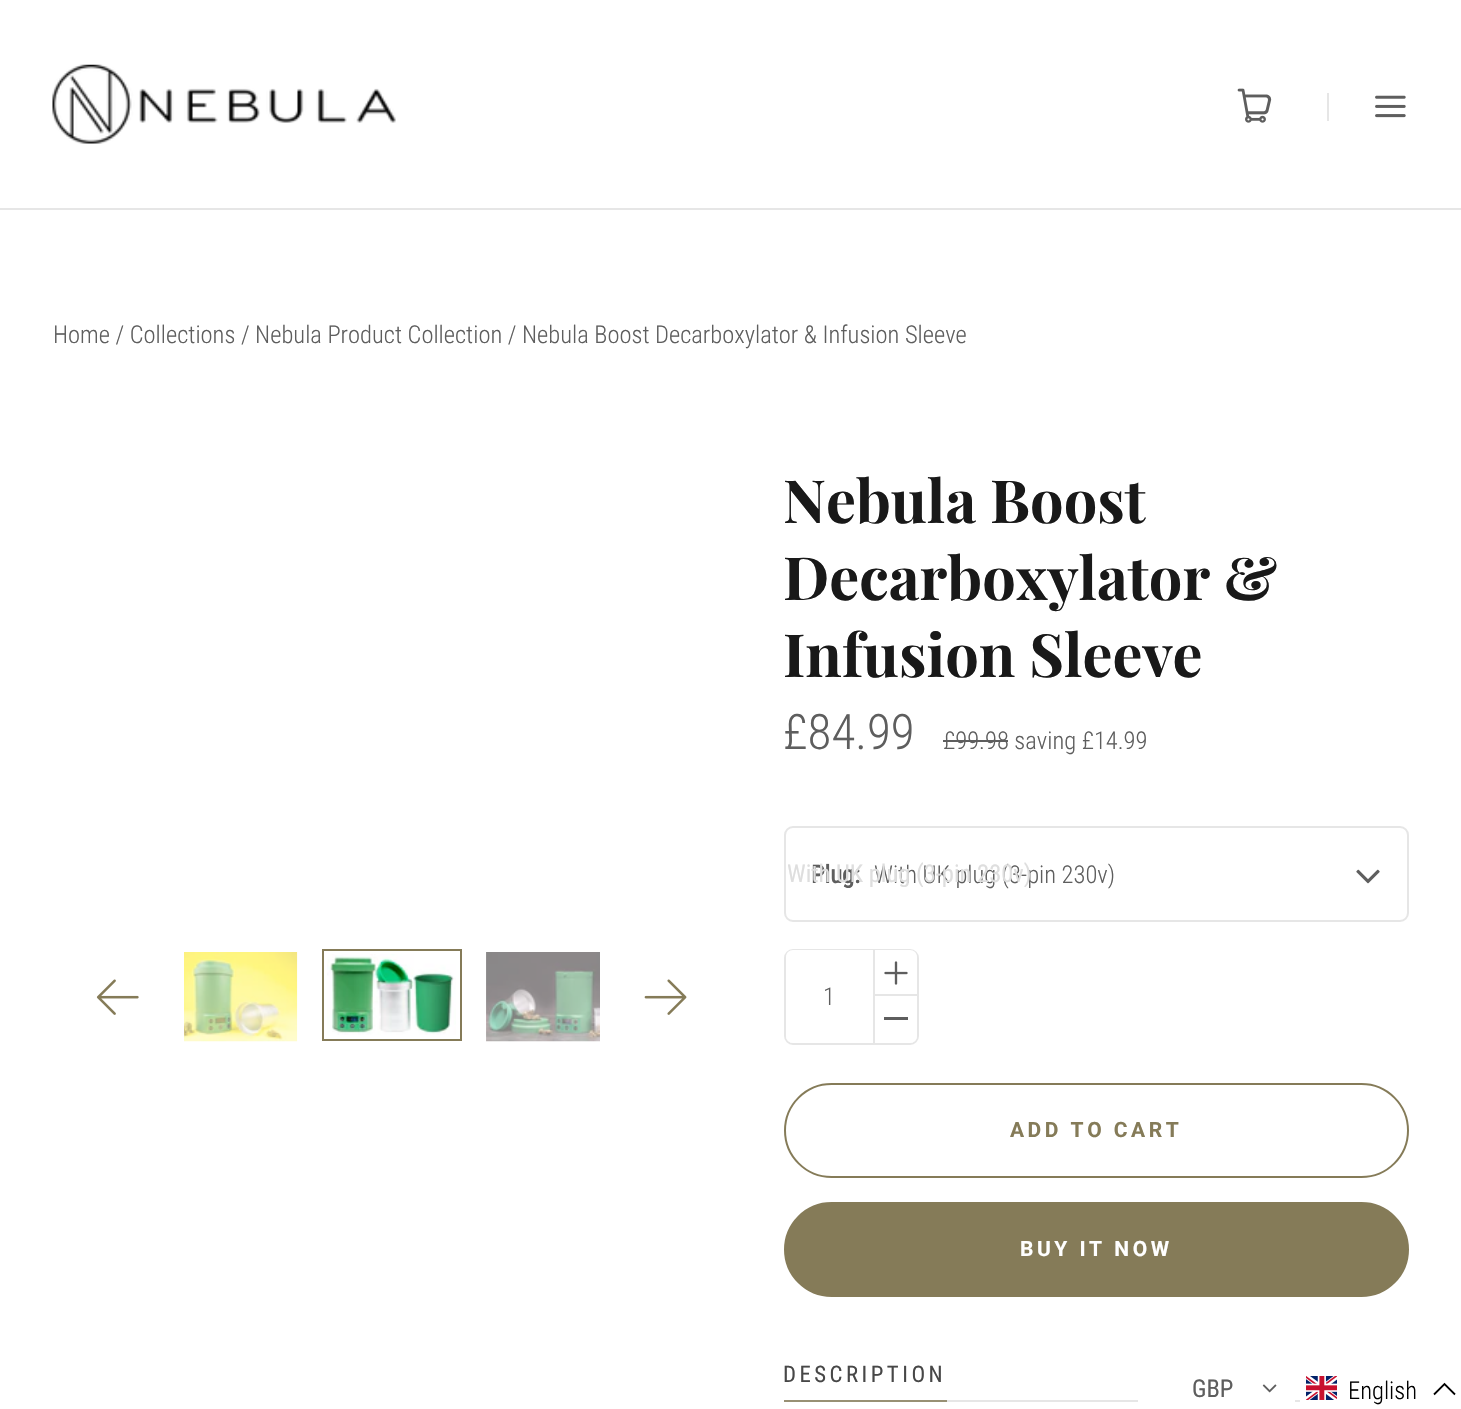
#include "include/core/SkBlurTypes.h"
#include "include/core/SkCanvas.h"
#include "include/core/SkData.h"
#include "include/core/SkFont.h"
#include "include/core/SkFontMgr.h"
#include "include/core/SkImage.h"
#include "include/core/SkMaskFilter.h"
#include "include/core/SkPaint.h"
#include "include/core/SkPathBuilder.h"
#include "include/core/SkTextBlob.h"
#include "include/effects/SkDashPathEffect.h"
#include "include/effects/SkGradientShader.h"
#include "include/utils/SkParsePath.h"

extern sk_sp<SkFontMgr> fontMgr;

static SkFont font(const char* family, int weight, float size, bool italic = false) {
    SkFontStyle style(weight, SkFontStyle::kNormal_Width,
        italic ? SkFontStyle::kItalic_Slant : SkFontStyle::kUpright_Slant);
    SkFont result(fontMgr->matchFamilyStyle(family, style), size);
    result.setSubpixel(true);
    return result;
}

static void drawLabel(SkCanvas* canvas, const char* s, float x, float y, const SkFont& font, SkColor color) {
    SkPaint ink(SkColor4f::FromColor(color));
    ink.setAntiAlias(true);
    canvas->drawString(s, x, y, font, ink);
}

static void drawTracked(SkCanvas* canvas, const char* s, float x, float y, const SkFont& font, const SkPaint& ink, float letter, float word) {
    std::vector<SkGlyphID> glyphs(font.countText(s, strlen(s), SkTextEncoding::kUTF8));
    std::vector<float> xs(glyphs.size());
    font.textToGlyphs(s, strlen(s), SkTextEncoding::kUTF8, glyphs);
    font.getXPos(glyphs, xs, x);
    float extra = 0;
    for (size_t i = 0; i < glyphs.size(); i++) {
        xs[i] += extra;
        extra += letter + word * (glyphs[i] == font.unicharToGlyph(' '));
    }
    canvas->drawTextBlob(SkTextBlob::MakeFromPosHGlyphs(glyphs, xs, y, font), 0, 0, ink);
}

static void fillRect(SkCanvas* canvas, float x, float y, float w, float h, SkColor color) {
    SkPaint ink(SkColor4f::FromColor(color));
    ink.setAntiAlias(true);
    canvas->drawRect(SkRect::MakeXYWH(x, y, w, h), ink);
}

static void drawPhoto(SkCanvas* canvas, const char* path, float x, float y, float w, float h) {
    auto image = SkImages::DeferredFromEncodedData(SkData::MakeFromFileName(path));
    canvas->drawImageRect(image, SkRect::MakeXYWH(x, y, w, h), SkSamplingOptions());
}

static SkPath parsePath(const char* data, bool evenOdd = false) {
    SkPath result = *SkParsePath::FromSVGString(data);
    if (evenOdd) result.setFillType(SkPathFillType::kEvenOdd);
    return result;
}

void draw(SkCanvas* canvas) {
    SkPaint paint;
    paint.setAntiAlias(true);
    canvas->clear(0xFFFFFFFF);
    fillRect(canvas, 0, 208, 1461, 2, 0xFFE6E6E6);
    drawPhoto(canvas, "assets/img1.png", 52, 64, 344, 80);
    drawPhoto(canvas, "assets/img2.png", 1237, 88, 35, 35);
    fillRect(canvas, 1327, 93, 2, 28, 0xFFE6E6E6);
    drawPhoto(canvas, "assets/img3.png", 1375, 95, 31, 23);
    SkFont font1 = font("Roboto Condensed", 300, 24.5f);
    drawLabel(canvas, "Home / Collections / Nebula Product Collection / Nebula Boost Decarboxylator & Infusion Sleeve", 53, 343, font1, 0xFF5E5E5E);
    drawPhoto(canvas, "assets/img4.png", 96, 979, 43, 36);
    drawPhoto(canvas, "assets/img5.png", 184, 952, 114, 90);
    paint.setStroke(true);
    paint.setStrokeWidth(2);
    paint.setColor(0xFF857B58);
    canvas->drawRect(SkRect::MakeXYWH(323, 950, 138, 90), paint);
    drawPhoto(canvas, "assets/img6.png", 327, 954, 129, 81);
    drawPhoto(canvas, "assets/img7.png", 486, 952, 114, 90);
    drawPhoto(canvas, "assets/img8.png", 644, 979, 43, 36);
    SkFont font2 = font("Playfair Display", 700, 59.5f);
    drawLabel(canvas, "Nebula Boost", 783, 523, font2, 0xFF191919);
    drawLabel(canvas, "Decarboxylator &", 783, 600, font2, 0xFF191919);
    drawLabel(canvas, "Infusion Sleeve", 783, 677, font2, 0xFF191919);
    SkFont font3 = font("Roboto Condensed", 300, 49);
    drawLabel(canvas, "£84.99", 783, 749, font3, 0xFF5E5E5E);
    drawLabel(canvas, "£99.98 saving £14.99", 943, 749, font1, 0xFF5E5E5E);
    fillRect(canvas, 943, 740, 65, 2, 0xFF5E5E5E);
    paint.setColor(0xFFE6E6E6);
    canvas->drawRoundRect(SkRect::MakeXYWH(785, 827, 623, 94), 8, 8, paint);
    SkFont font4 = font("Roboto Condensed", 700, 24.5f);
    drawLabel(canvas, "Plug:", 811, 883, font4, 0xFF5E5E5E);
    drawLabel(canvas, "With UK plug (3-pin 230v)", 874, 883, font1, 0xFF5E5E5E);
    canvas->save();
    canvas->clipRect(SkRect::MakeXYWH(788, 859, 617, 28));
    SkFont font5 = font("Roboto Condensed", 400, 24.5f);
    drawLabel(canvas, "With UK plug (3-pin 230v)", 787, 882, font5, 0xFFDEDEDE);
    canvas->restore();
    drawPhoto(canvas, "assets/img9.png", 1356, 869, 24, 15);
    canvas->drawRoundRect(SkRect::MakeXYWH(785, 950, 133, 94), 8, 8, paint);
    paint.setStroke(false);
    paint.setColor(0xFFFFFFFF);
    canvas->drawPath(parsePath("M793 950H873V1043H793C789 1043 786 1040 786 1036V957C786 953 789 950 793 950Z"), paint);
    drawLabel(canvas, "1", 823, 1005, font1, 0xFF5E5E5E);
    fillRect(canvas, 873, 950, 2, 93, 0xFFE6E6E6);
    canvas->drawPath(parsePath("M875 950H910C914 950 917 953 917 957V996H875Z"), paint);
    fillRect(canvas, 875, 994, 42, 2, 0xFFE6E6E6);
    drawPhoto(canvas, "assets/img10.png", 884, 961, 24, 24);
    canvas->drawPath(parsePath("M875 996H917V1036C917 1040 914 1043 910 1043H875Z"), paint);
    fillRect(canvas, 884, 1017, 24, 3, 0xFF5E5E5E);
    paint.setStroke(true);
    paint.setColor(0xFF857B58);
    canvas->drawRoundRect(SkRect::MakeXYWH(785, 1084, 623, 93), 46.5f, 46.5f, paint);
    SkFont font6 = font("Roboto", 700, 21);
    paint.setStroke(false);
    drawTracked(canvas, "ADD TO CART", 1010, 1137, font6, paint, 3.5f, 0);
    canvas->drawRoundRect(SkRect::MakeXYWH(785, 1203, 623, 93), 46.5f, 46.5f, paint);
    paint.setStroke(true);
    canvas->drawRoundRect(SkRect::MakeXYWH(785, 1203, 623, 93), 46.5f, 46.5f, paint);
    paint.setStroke(false);
    paint.setColor(0xFFFFFFFF);
    drawTracked(canvas, "BUY IT NOW", 1020, 1256, font6, paint, 3.5f, 0);
    fillRect(canvas, 947, 1400, 353, 2, 0xFFE6E6E6);
    SkFont font7 = font("Roboto Condensed", 400, 22.75f);
    paint.setColor(0xFF474747);
    drawTracked(canvas, "DESCRIPTION", 783, 1382, font7, paint, 3.5f, 0);
    fillRect(canvas, 784, 1400, 163, 2, 0xFF989074);
    fillRect(canvas, 1138, 1400, 157, 2, 0xFFFFFFFF);
    drawLabel(canvas, "GBP", 1192, 1397, font5, 0xFF5E5E5E);
    drawPhoto(canvas, "assets/img11.png", 1262, 1384, 15, 9);
    drawPhoto(canvas, "assets/img12.png", 1306, 1376, 31, 24);
    drawLabel(canvas, "English", 1348, 1399, font1, 0xFF000000);
    paint.setStroke(true);
    paint.setStrokeWidth(1.8f);
    paint.setColor(0xFF000000);
    canvas->drawPath(parsePath("M1455 1394.5L1444.5 1384L1434 1394.5"), paint);
}
